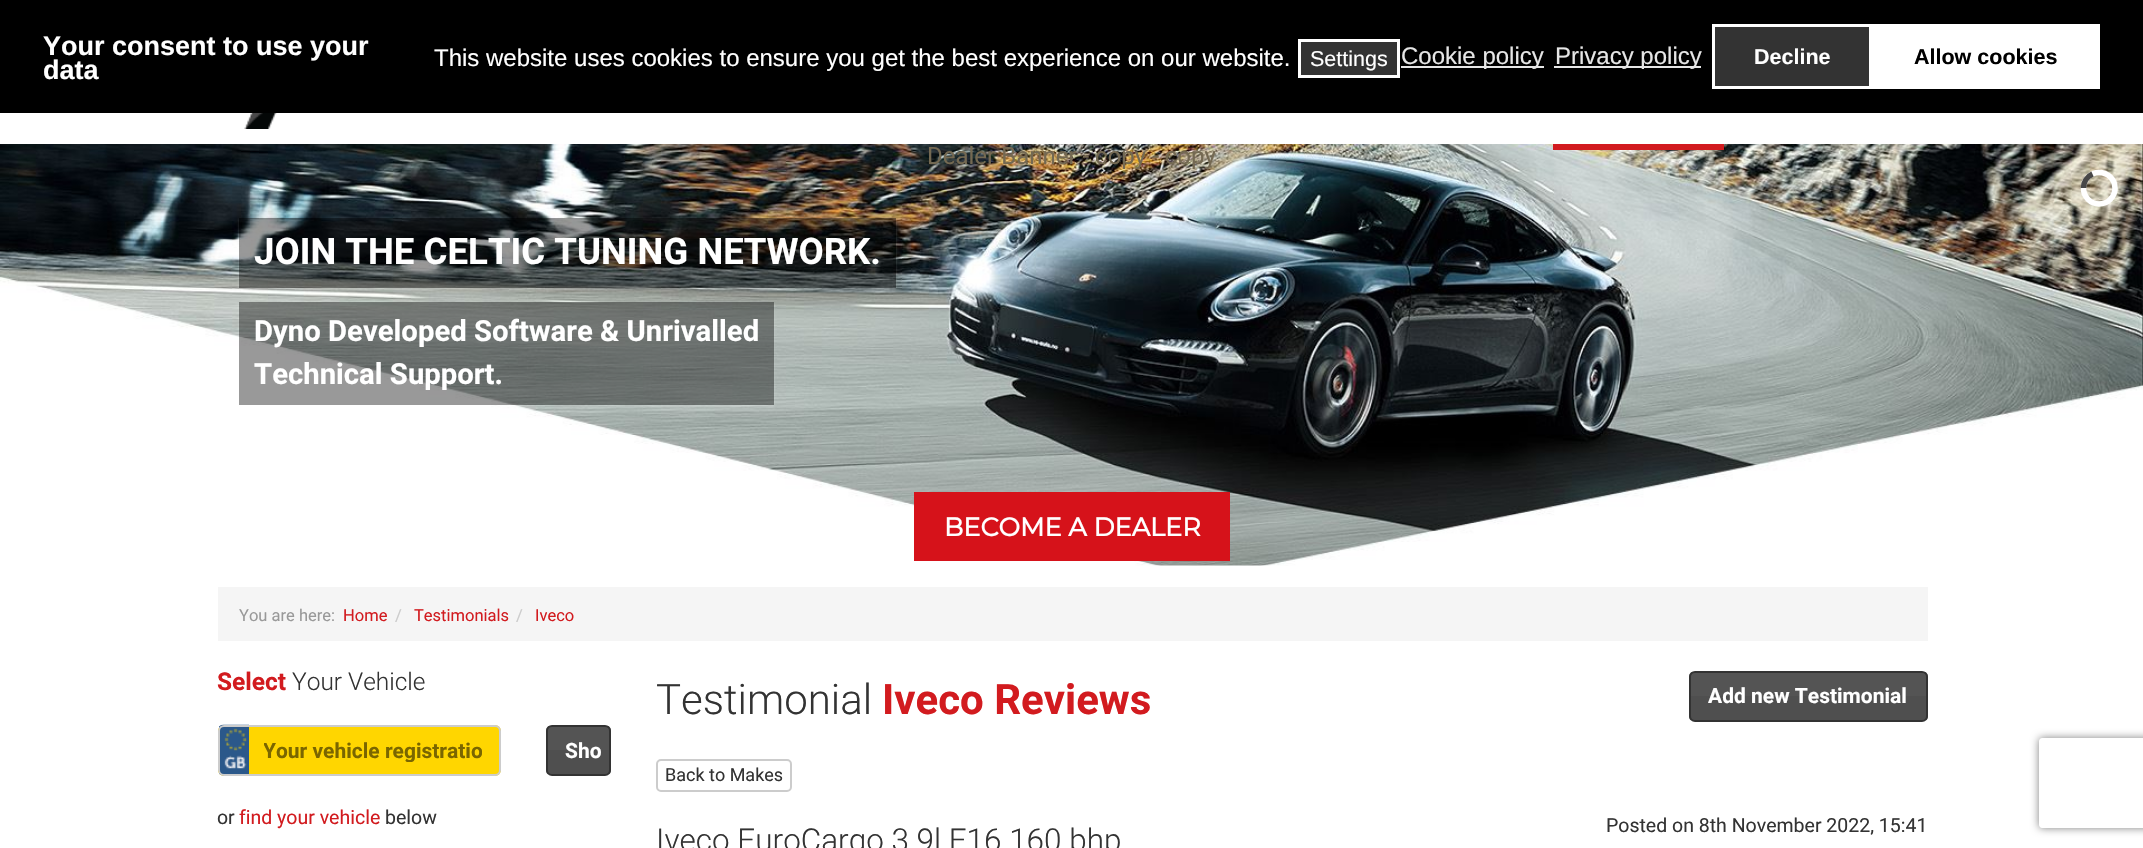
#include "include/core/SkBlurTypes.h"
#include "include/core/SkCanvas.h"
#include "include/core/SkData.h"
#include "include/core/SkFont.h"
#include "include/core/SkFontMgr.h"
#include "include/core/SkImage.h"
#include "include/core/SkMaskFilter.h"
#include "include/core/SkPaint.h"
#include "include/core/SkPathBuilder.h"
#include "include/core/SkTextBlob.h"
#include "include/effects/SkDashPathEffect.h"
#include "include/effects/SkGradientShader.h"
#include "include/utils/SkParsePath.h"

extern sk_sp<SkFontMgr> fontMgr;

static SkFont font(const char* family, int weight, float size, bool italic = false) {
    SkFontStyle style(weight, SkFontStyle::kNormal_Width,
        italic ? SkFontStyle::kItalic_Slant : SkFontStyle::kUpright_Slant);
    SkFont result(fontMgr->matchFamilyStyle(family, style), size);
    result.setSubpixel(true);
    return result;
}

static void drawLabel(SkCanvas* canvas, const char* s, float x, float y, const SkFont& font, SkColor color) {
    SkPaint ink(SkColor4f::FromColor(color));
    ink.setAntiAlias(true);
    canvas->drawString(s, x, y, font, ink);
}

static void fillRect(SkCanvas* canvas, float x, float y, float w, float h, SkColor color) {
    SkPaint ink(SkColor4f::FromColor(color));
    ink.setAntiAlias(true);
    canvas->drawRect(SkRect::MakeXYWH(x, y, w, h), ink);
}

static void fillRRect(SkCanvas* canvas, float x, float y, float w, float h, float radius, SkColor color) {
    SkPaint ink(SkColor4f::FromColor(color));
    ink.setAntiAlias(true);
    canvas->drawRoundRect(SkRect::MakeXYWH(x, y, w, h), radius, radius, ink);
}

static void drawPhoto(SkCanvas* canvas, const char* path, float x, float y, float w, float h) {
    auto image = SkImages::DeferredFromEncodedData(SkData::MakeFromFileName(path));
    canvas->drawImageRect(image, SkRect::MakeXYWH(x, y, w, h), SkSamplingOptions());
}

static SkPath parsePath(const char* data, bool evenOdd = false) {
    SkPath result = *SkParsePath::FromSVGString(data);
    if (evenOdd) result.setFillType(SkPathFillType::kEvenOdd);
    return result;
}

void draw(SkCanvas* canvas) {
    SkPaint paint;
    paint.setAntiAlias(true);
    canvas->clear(0xFFFFFFFF);
    fillRect(canvas, 0, 0, 2143, 113, 0xFF000000);
    SkFont font1 = font("Liberation Sans", 700, 27);
    drawLabel(canvas, "Your consent to use your", 43, 55, font1, 0xFFFFFFFF);
    drawLabel(canvas, "data", 43, 79, font1, 0xFFFFFFFF);
    SkFont font2 = font("Liberation Sans", 400, 24);
    drawLabel(canvas, "This website uses cookies to ensure you get the best experience on our website.", 434, 66, font2, 0xFFFFFFFF);
    paint.setColor(0xFF333333);
    canvas->drawRect(SkRect::MakeXYWH(1299.5f, 40.5f, 99, 36), paint);
    paint.setStroke(true);
    paint.setStrokeWidth(3);
    paint.setColor(0xFFFFFFFF);
    canvas->drawRect(SkRect::MakeXYWH(1299.5f, 40.5f, 99, 36), paint);
    SkFont font3 = font("Liberation Sans", 400, 21.5f);
    drawLabel(canvas, "Settings", 1310, 66, font3, 0xFFFFFFFF);
    fillRect(canvas, 1401, 66, 143, 2, 0xFFE6E6E6);
    drawLabel(canvas, "Cookie policy", 1401, 64, font2, 0xFFE6E6E6);
    fillRect(canvas, 1554, 66, 147, 2, 0xFFE6E6E6);
    drawLabel(canvas, "Privacy policy", 1555, 64, font2, 0xFFE6E6E6);
    paint.setStroke(false);
    paint.setColor(0xFF333333);
    canvas->drawRect(SkRect::MakeXYWH(1713.5f, 25.5f, 157, 62), paint);
    paint.setStroke(true);
    paint.setColor(0xFFFFFFFF);
    canvas->drawRect(SkRect::MakeXYWH(1713.5f, 25.5f, 157, 62), paint);
    SkFont font4 = font("Liberation Sans", 700, 21.5f);
    drawLabel(canvas, "Decline", 1754, 64, font4, 0xFFFFFFFF);
    fillRect(canvas, 1872, 24, 228, 65, 0xFFFFFFFF);
    drawLabel(canvas, "Allow cookies", 1914, 64, font4, 0xFF000000);
    drawPhoto(canvas, "assets/img1.png", 244, 113, 33, 16);
    drawPhoto(canvas, "assets/img2.png", 0, 144, 2143, 422);
    SkFont font5 = font("Roboto", 400, 24);
    drawLabel(canvas, "Dealer Banner - copy - copy", 927, 164, font5, 0xFF746952);
    canvas->save();
    canvas->clipPath(parsePath("M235 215H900V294H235ZM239 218H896V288H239Z", true), true);
    paint.setStroke(false);
    paint.setColor(0x33FFFFFF);
    paint.setMaskFilter(SkMaskFilter::MakeBlur(kNormal_SkBlurStyle, 1));
    canvas->drawRect(SkRect::MakeXYWH(239, 219, 657, 71), paint);
    paint.setMaskFilter(nullptr);
    canvas->restore();
    fillRect(canvas, 239, 218, 657, 70, 0x66000000);
    SkFont font6 = font("Roboto", 700, 36.6f);
    drawLabel(canvas, "JOIN THE CELTIC TUNING NETWORK.", 254, 264, font6, 0xFFFFFFFF);
    canvas->save();
    canvas->clipPath(parsePath("M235 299H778V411H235ZM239 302H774V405H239Z", true), true);
    paint.setMaskFilter(SkMaskFilter::MakeBlur(kNormal_SkBlurStyle, 1));
    canvas->drawRect(SkRect::MakeXYWH(239, 303, 535, 104), paint);
    paint.setMaskFilter(nullptr);
    canvas->restore();
    fillRect(canvas, 239, 302, 535, 103, 0x66000000);
    SkFont font7 = font("Roboto", 700, 29.3f);
    drawLabel(canvas, "Dyno Developed Software & Unrivalled", 254, 341, font7, 0xFFFFFFFF);
    drawLabel(canvas, "Technical Support.", 254, 384, font7, 0xFFFFFFFF);
    fillRect(canvas, 914, 492, 316, 69, 0xFFD6121A);
    SkFont font8 = font("Montserrat", 700, 25.6f);
    drawLabel(canvas, "BECOME A DEALER", 944, 536, font8, 0xFFFFFFFF);
    paint.setStroke(true);
    paint.setStrokeWidth(5.6f);
    paint.setColor(0xFFFFFFFF);
    canvas->drawPath(parsePath("M2083.5 188C2083.5 179.5 2090.5 172.5 2099 172.5C2108 172.5 2115 179.5 2115 188C2115 197 2108 204 2099 204C2090.5 204 2083.5 197 2083.5 188Z"), paint);
    paint.setColor(0xB8000000);
    canvas->drawPath(parsePath("M2083.5 188C2083.5 182 2087 176.5 2092.5 174"), paint);
    fillRect(canvas, 1553, 144, 171, 6, 0xFFD21B1F);
    fillRect(canvas, 218, 587, 1710, 54, 0xFFF5F5F5);
    SkFont font9 = font("Roboto", 400, 16.5f);
    drawLabel(canvas, "You are here:", 239, 621, font9, 0xFF999999);
    drawLabel(canvas, "Home", 343, 621, font9, 0xFFD21B1F);
    drawLabel(canvas, "/", 395, 621, font9, 0xFFCCCCCC);
    drawLabel(canvas, "Testimonials", 414, 621, font9, 0xFFD21B1F);
    drawLabel(canvas, "/", 516, 621, font9, 0xFFCCCCCC);
    drawLabel(canvas, "Iveco", 535, 621, font9, 0xFFD21B1F);
    SkFont font10 = font("Roboto", 700, 24.5f);
    drawLabel(canvas, "Select", 217, 690, font10, 0xFFD21B1F);
    SkFont font11 = font("Roboto", 300, 24.5f);
    drawLabel(canvas, "Your Vehicle", 292, 690, font11, 0xFF333333);
    fillRRect(canvas, 218, 725, 283, 51, 6, 0xFFFFD600);
    drawPhoto(canvas, "assets/img3.png", 219, 724, 30, 52);
    paint.setStrokeWidth(2);
    paint.setColor(0xFFCCCCCC);
    canvas->drawRoundRect(SkRect::MakeXYWH(219, 726, 281, 49), 5, 5, paint);
    canvas->save();
    canvas->clipRect(SkRect::MakeXYWH(264, 738, 218, 24));
    SkFont font12 = font("Roboto", 700, 21);
    drawLabel(canvas, "Your vehicle registratio", 263, 758, font12, 0xFF7A6600);
    canvas->restore();
    canvas->save();
    canvas->clipPath(parsePath("M552 725H605C608.5 725 611 727.5 611 731V770C611 773.5 608.5 776 605 776H552C548.5 776 546 773.5 546 770V731C546 727.5 548.5 725 552 725Z"), true);
    fillRect(canvas, 546, 726, 65, 24, 0xFF545454);
    fillRect(canvas, 546, 750, 65, 24, 0xFF4F4F4F);
    canvas->restore();
    paint.setColor(0xFF333333);
    canvas->drawRoundRect(SkRect::MakeXYWH(547, 726, 63, 49), 5, 5, paint);
    drawLabel(canvas, "Sho", 565, 758, font12, 0xFFFFFFFF);
    SkFont font13 = font("Roboto", 400, 19.5f);
    drawLabel(canvas, "or", 217, 824, font13, 0xFF333333);
    drawLabel(canvas, "find your vehicle", 239, 824, font13, 0xFFD21B1F);
    drawLabel(canvas, "below", 385, 824, font13, 0xFF333333);
    SkFont font14 = font("Roboto", 300, 42);
    drawLabel(canvas, "Testimonial", 656, 714, font14, 0xFF333333);
    SkFont font15 = font("Roboto", 700, 42);
    drawLabel(canvas, "Iveco Reviews", 882, 714, font15, 0xFFD21B1F);
    paint.setColor(0xFFCCCCCC);
    canvas->drawRoundRect(SkRect::MakeXYWH(657, 760, 134, 31), 4, 4, paint);
    SkFont font16 = font("Roboto", 400, 18);
    drawLabel(canvas, "Back to Makes", 665, 781, font16, 0xFF333333);
    canvas->save();
    canvas->clipPath(parsePath("M1695 671H1922C1925.5 671 1928 673.5 1928 677V716C1928 719.5 1925.5 722 1922 722H1695C1691.5 722 1689 719.5 1689 716V677C1689 673.5 1691.5 671 1695 671Z"), true);
    fillRect(canvas, 1689, 672, 239, 24, 0xFF545454);
    fillRect(canvas, 1689, 696, 239, 24, 0xFF4F4F4F);
    canvas->restore();
    paint.setColor(0xFF333333);
    canvas->drawRoundRect(SkRect::MakeXYWH(1690, 672, 237, 49), 5, 5, paint);
    drawLabel(canvas, "Add new Testimonial", 1708, 703, font12, 0xFFFFFFFF);
    SkFont font17 = font("Roboto", 300, 31.5f);
    drawLabel(canvas, "Iveco EuroCargo 3.9l E16 160 bhp", 656, 851, font17, 0xFF333333);
    drawLabel(canvas, "Posted on 8th November 2022, 15:41", 1606, 832, font13, 0xFF333333);
    canvas->save();
    canvas->clipPath(parsePath("M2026 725H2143V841H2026ZM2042 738H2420C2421.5 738 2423 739.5 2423 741V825C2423 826.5 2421.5 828 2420 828H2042C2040.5 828 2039 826.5 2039 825V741C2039 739.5 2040.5 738 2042 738Z", true), true);
    paint.setStroke(false);
    paint.setColor(0xFF808080);
    paint.setMaskFilter(SkMaskFilter::MakeBlur(kNormal_SkBlurStyle, 4));
    canvas->drawRoundRect(SkRect::MakeXYWH(2039, 738, 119, 90), 3, 3, paint);
    paint.setMaskFilter(nullptr);
    canvas->restore();
}
